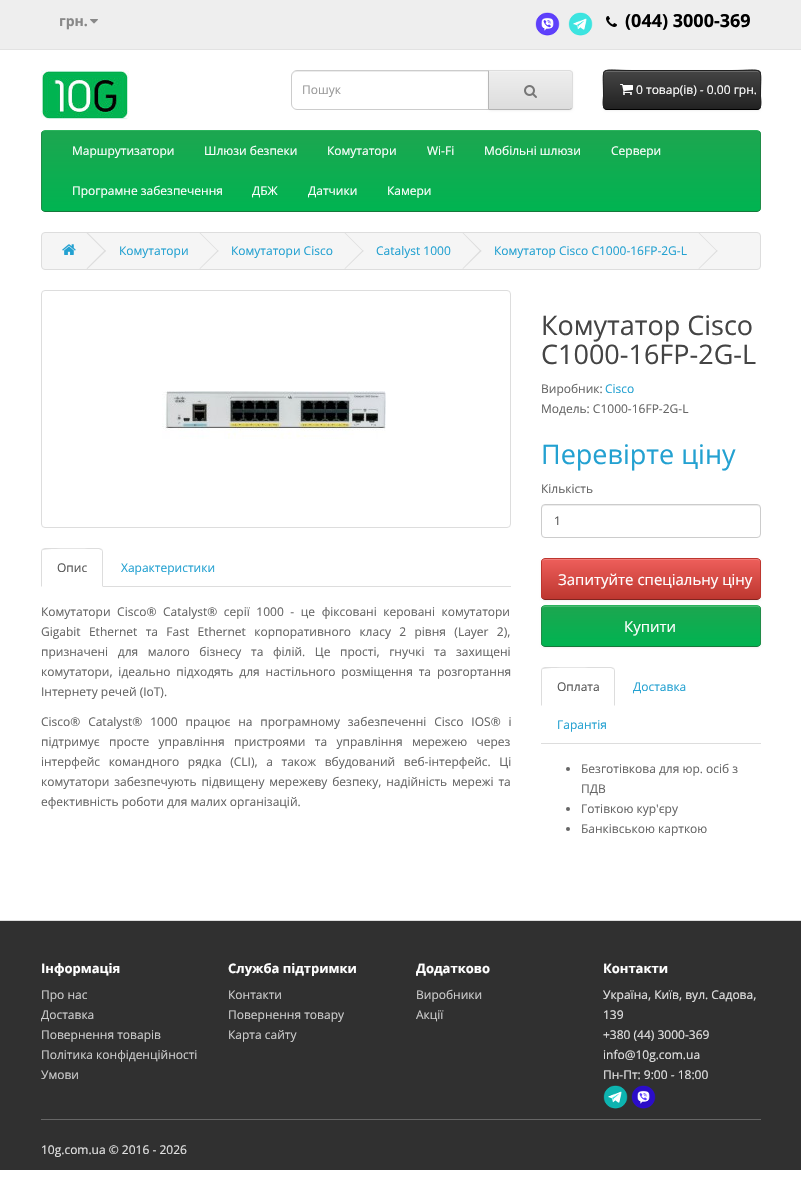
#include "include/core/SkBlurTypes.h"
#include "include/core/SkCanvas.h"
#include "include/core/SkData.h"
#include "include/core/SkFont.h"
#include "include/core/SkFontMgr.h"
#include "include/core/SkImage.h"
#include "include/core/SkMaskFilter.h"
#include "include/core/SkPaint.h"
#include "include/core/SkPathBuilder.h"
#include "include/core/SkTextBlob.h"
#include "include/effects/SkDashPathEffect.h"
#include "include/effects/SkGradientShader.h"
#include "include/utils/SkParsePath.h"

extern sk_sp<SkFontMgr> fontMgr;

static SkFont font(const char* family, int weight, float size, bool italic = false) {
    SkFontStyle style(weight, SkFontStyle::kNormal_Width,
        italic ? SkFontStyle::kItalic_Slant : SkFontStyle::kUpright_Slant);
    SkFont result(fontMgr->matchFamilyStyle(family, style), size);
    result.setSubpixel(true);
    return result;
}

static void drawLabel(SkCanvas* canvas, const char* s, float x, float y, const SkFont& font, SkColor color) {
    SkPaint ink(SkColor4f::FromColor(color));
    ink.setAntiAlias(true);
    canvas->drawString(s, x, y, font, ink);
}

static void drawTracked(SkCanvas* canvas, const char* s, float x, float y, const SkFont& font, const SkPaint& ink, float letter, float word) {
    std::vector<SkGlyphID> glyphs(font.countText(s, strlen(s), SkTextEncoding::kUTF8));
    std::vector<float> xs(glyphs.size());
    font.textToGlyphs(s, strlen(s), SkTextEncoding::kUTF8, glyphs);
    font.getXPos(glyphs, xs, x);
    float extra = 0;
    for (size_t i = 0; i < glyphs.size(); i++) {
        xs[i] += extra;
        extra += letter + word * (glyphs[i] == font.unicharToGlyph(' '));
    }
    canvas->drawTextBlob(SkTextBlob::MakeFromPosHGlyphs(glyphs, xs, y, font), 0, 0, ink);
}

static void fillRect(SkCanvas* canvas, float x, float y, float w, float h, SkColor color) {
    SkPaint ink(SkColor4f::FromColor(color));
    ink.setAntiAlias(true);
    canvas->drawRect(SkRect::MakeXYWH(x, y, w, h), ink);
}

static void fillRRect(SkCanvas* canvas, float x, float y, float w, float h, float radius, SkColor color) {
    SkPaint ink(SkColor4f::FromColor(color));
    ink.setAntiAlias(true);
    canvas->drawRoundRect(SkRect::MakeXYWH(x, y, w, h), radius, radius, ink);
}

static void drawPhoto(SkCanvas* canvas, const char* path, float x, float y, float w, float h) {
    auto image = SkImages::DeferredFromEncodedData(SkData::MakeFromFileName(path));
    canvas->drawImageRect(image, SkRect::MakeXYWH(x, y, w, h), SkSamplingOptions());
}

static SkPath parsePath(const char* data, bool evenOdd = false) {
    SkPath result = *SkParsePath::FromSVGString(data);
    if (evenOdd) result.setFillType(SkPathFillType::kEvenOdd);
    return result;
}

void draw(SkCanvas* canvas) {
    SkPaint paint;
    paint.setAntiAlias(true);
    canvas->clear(0xFFFFFFFF);
    fillRect(canvas, 0, 0, 801, 49, 0xFFEEEEEE);
    fillRect(canvas, 0, 49, 801, 1, 0xFFE2E2E2);
    SkFont font1 = font("Open Sans", 700, 14);
    drawLabel(canvas, "грн.", 59, 26, font1, 0xFF888888);
    drawPhoto(canvas, "assets/img1.png", 90, 19, 8, 5);
    drawPhoto(canvas, "assets/img2.png", 535, 12, 25, 24);
    drawPhoto(canvas, "assets/img3.png", 568, 12, 25, 24);
    drawPhoto(canvas, "assets/img4.png", 606, 16, 11, 11);
    SkFont font2 = font("Open Sans", 700, 18);
    drawLabel(canvas, "(044) 3000-369", 625, 27, font2, 0xFF000000);
    drawPhoto(canvas, "assets/img5.png", 41, 70, 88, 50);
    paint.setColor(0xFFECECEC);
    canvas->drawPath(parsePath("M297 72H488V71H296C293 72 292 74 292 77C292 74 294 72 297 72Z"), paint);
    paint.setStroke(true);
    paint.setStrokeWidth(1);
    paint.setColor(0xFFCCCCCC);
    canvas->drawPath(parsePath("M297 70.5H488.5V109.5H297C294 109.5 291.5 107 291.5 104V76C291.5 73 294 70.5 297 70.5Z"), paint);
    SkFont font3 = font("Open Sans", 400, 12);
    drawLabel(canvas, "Пошук", 302, 94, font3, 0xFF999999);
    paint.setStroke(false);
    paint.setColor(0x0D000000);
    paint.setMaskFilter(SkMaskFilter::MakeBlur(kNormal_SkBlurStyle, 1));
    canvas->drawRoundRect(SkRect::MakeXYWH(488, 71, 85, 40), 4, 4, paint);
    paint.setMaskFilter(nullptr);
    paint.setColor(0xFFE7E7E7);
    canvas->drawPath(parsePath("M488 70H569C571 70 573 72 573 74V106C573 108 571 110 569 110H488Z"), paint);
    canvas->save();
    canvas->clipPath(parsePath("M488 70H569C571 70 573 72 573 74V106C573 108 571 110 569 110H488Z"), true);
    {
        const SkColor colors[] = {0xFFEEEEEE, 0xFFDDDDDD};
        const float stops[] = {0, 1};
        const SkPoint ends[] = {{531, 71}, {531, 109}};
        paint.setShader(SkGradientShader::MakeLinear(ends, colors, stops, 2, SkTileMode::kClamp));
        paint.setAlpha(255);
    }
    canvas->drawRect(SkRect::MakeXYWH(489, 71, 84, 38), paint);
    canvas->restore();
    paint.setShader(nullptr);
    paint.setColor(0xFFF1F1F1);
    canvas->drawPath(parsePath("M489 72H569C571 72 572 73 572 75V74C572 72 571 71 569 71H489Z"), paint);
    paint.setColor(0xFFDDDDDD);
    canvas->drawPath(parsePath("M488 70L489 71H570L571 72L572 71L569 70Z"), paint);
    canvas->drawPath(parsePath("M573 106V74C573 73 572.5 72 572 71L571 72C572 72 572 73 572 74V106C572 107 572 108 571 108L572 109C572.5 108 573 107 573 106Z"), paint);
    paint.setColor(0xFFB3B3B3);
    canvas->drawPath(parsePath("M569 110L572 109L571 108L570 109H489L488 110Z"), paint);
    paint.setColor(0xFFB7B7B7);
    canvas->drawPath(parsePath("M488 70V110L489 109V71Z"), paint);
    drawPhoto(canvas, "assets/img6.png", 524, 85, 13, 13);
    paint.setColor(0x0D000000);
    paint.setMaskFilter(SkMaskFilter::MakeBlur(kNormal_SkBlurStyle, 1));
    canvas->drawRoundRect(SkRect::MakeXYWH(603, 71, 158, 40), 4, 4, paint);
    paint.setMaskFilter(nullptr);
    fillRRect(canvas, 603, 70, 158, 40, 4, 0xFF363636);
    canvas->save();
    canvas->clipPath(parsePath("M607 70H757C759 70 761 72 761 74V106C761 108 759 110 757 110H607C605 110 603 108 603 106V74C603 72 605 70 607 70Z"), true);
    {
        const SkColor colors[] = {0xFF444444, 0xFF222222};
        const float stops[] = {0, 1};
        const SkPoint ends[] = {{682, 71}, {682, 109}};
        paint.setShader(SkGradientShader::MakeLinear(ends, colors, stops, 2, SkTileMode::kClamp));
        paint.setAlpha(255);
    }
    canvas->drawRect(SkRect::MakeXYWH(603, 71, 158, 38), paint);
    canvas->restore();
    paint.setShader(nullptr);
    paint.setColor(0xFF696969);
    canvas->drawPath(parsePath("M607 72H757C759 72 760 73 760 75C760 73 759 71 757 71H606C604 71 604 73 604 75C604 73 605 72 607 72Z"), paint);
    paint.setStroke(true);
    paint.setColor(0xFF000000);
    canvas->drawPath(parsePath("M759.5 108.5C759 109 758 109.5 757 109.5H607C606 109.5 605 109 604.5 108.5"), paint);
    paint.setColor(0xFF222222);
    canvas->drawPath(parsePath("M604.5 108.5C602 106 603.5 98 603.5 95.5C603.5 64 598 70.5 632 70.5H732C766 70.5 760.5 64 760.5 95.5C760.5 98 762 106 759.5 108.5"), paint);
    drawPhoto(canvas, "assets/img7.png", 620, 84, 13, 11);
    drawLabel(canvas, "0 товар(ів) - 0.00 грн.", 636, 94, font3, 0xFFFFFFFF);
    canvas->save();
    canvas->clipPath(parsePath("M45 130H757C759 130 761 132 761 134V208C761 210 759 212 757 212H45C43 212 41 210 41 208V134C41 132 43 130 45 130Z"), true);
    paint.setStroke(false);
    {
        const SkColor colors[] = {0xFF1DA650, 0xFF00B451};
        const float stops[] = {0, 1};
        const SkPoint ends[] = {{401, 131}, {401, 211}};
        paint.setShader(SkGradientShader::MakeLinear(ends, colors, stops, 2, SkTileMode::kClamp));
        paint.setAlpha(255);
    }
    canvas->drawRect(SkRect::MakeXYWH(41, 131, 720, 80), paint);
    canvas->restore();
    paint.setStroke(true);
    paint.setShader(nullptr);
    paint.setColor(0xFF2BB45D);
    canvas->drawPath(parsePath("M42.5 131.5C43 131 44 130.5 45 130.5H757C758 130.5 759 131 759.5 131.5"), paint);
    paint.setColor(0xFF218B48);
    canvas->drawPath(parsePath("M759.5 131.5L760.5 133.5V208.5L759.5 210.5"), paint);
    paint.setColor(0xFF15783A);
    canvas->drawPath(parsePath("M759.5 210.5C759 211 758 211.5 757 211.5H45C44 211.5 43 211 42.5 210.5"), paint);
    paint.setColor(0xFF218B48);
    canvas->drawPath(parsePath("M42.5 210.5L41.5 208.5V133.5L42.5 131.5"), paint);
    drawLabel(canvas, "Маршрутизатори", 72, 155, font3, 0xFFFFFFFF);
    drawLabel(canvas, "Шлюзи безпеки", 204, 155, font3, 0xFFFFFFFF);
    drawLabel(canvas, "Комутатори", 327, 155, font3, 0xFFFFFFFF);
    drawLabel(canvas, "Wi-Fi", 427, 155, font3, 0xFFFFFFFF);
    drawLabel(canvas, "Мобільні шлюзи", 484, 155, font3, 0xFFFFFFFF);
    drawLabel(canvas, "Сервери", 611, 155, font3, 0xFFFFFFFF);
    drawLabel(canvas, "Програмне забезпечення", 72, 195, font3, 0xFFFFFFFF);
    drawLabel(canvas, "ДБЖ", 252, 195, font3, 0xFFFFFFFF);
    drawLabel(canvas, "Датчики", 308, 195, font3, 0xFFFFFFFF);
    drawLabel(canvas, "Камери", 387, 195, font3, 0xFFFFFFFF);
    paint.setStroke(false);
    paint.setColor(0xFFF5F5F5);
    canvas->drawRoundRect(SkRect::MakeXYWH(41.5f, 232.5f, 719, 37), 3.5f, 3.5f, paint);
    paint.setStroke(true);
    paint.setColor(0xFFDDDDDD);
    canvas->drawRoundRect(SkRect::MakeXYWH(41.5f, 232.5f, 719, 37), 3.5f, 3.5f, paint);
    drawPhoto(canvas, "assets/img8.png", 62, 244, 14, 11);
    paint.setStroke(false);
    canvas->drawPath(parsePath("M86.5 233L87.5 232.5L106 251L105 251.5Z"), paint);
    canvas->drawPath(parsePath("M86.5 268.5L105 250L106 251L87.5 269Z"), paint);
    drawLabel(canvas, "Комутатори", 119, 255, font3, 0xFF23A1D1);
    canvas->drawPath(parsePath("M199.5 233L200 232.5L218.5 251L218 251.5Z"), paint);
    canvas->drawPath(parsePath("M199.5 268.5L218 250L218.5 251L200 269Z"), paint);
    drawLabel(canvas, "Комутатори Cisco", 231, 255, font3, 0xFF23A1D1);
    canvas->drawPath(parsePath("M344.5 233L345 232.5L363.5 251L363 251.5Z"), paint);
    canvas->drawPath(parsePath("M344.5 268.5L363 250L363.5 251L345 269Z"), paint);
    drawLabel(canvas, "Catalyst 1000", 376, 255, font3, 0xFF23A1D1);
    canvas->drawPath(parsePath("M462.5 233L463 232.5L481.5 251L480.5 251.5Z"), paint);
    canvas->drawPath(parsePath("M462.5 268.5L480.5 250L481.5 251L463 269Z"), paint);
    drawLabel(canvas, "Комутатор Cisco C1000-16FP-2G-L", 494, 255, font3, 0xFF23A1D1);
    canvas->drawPath(parsePath("M698.5 233L699 232.5L717.5 251L717 251.5Z"), paint);
    canvas->drawPath(parsePath("M698.5 268.5L717 250L717.5 251L699 269Z"), paint);
    paint.setStroke(true);
    canvas->drawRoundRect(SkRect::MakeXYWH(41.5f, 290.5f, 469, 237), 3.5f, 3.5f, paint);
    drawPhoto(canvas, "assets/img9.png", 162, 391, 224, 48);
    fillRect(canvas, 103, 586, 408, 1, 0xFFDDDDDD);
    paint.setStroke(false);
    canvas->drawPath(parsePath("M45 548L42 549L43 550C45 548 94 549 99 549L101 550L102 549L99 548Z"), paint);
    canvas->drawPath(parsePath("M103 587V552C103 551 102.5 550 102 549L101 550C102 550 102 551 102 552V586ZM41 587L42 586V552C42 551 42 550 43 550L42 549C41.5 550 41 551 41 552Z"), paint);
    drawLabel(canvas, "Опис", 57, 572, font3, 0xFF555555);
    drawLabel(canvas, "Характеристики", 121, 572, font3, 0xFF23A1D1);
    paint.setColor(0xFF666666);
    drawTracked(canvas, "Комутатори Cisco® Catalyst® серії 1000 - це фіксовані керовані комутатори", 41, 616, font3, paint, 0, 3.5f);
    drawTracked(canvas, "Gigabit Ethernet та Fast Ethernet корпоративного класу 2 рівня (Layer 2),", 41, 636, font3, paint, 0, 5.25f);
    drawTracked(canvas, "призначені для малого бізнесу та філій. Це прості, гнучкі та захищені", 41, 656, font3, paint, 0, 6.5f);
    drawTracked(canvas, "комутатори, ідеально підходять для настільного розміщення та розгортання", 41, 676, font3, paint, 0, 2.75f);
    drawLabel(canvas, "Інтернету речей (IoT).", 41, 696, font3, 0xFF666666);
    drawTracked(canvas, "Cisco® Catalyst® 1000 працює на програмному забезпеченні Cisco IOS® і", 41, 726, font3, paint, 0, 4.75f);
    drawTracked(canvas, "підтримує просте управління пристроями та управління мережею через", 41, 746, font3, paint, 0, 6.25f);
    drawTracked(canvas, "інтерфейс командного рядка (CLI), а також вбудований веб-інтерфейс. Ці", 41, 766, font3, paint, 0, 5.5f);
    drawTracked(canvas, "комутатори забезпечують підвищену мережеву безпеку, надійність мережі та", 41, 786, font3, paint, 0, 1.75f);
    drawLabel(canvas, "ефективність роботи для малих організацій.", 41, 806, font3, 0xFF666666);
    SkFont font4 = font("Open Sans", 400, 27);
    drawLabel(canvas, "Комутатор Cisco", 541, 335, font4, 0xFF444444);
    drawLabel(canvas, "C1000-16FP-2G-L", 541, 364, font4, 0xFF444444);
    drawLabel(canvas, "Виробник:", 541, 393, font3, 0xFF666666);
    drawLabel(canvas, "Cisco", 605, 393, font3, 0xFF23A1D1);
    drawLabel(canvas, "Модель: C1000-16FP-2G-L", 541, 413, font3, 0xFF666666);
    drawLabel(canvas, "Перевірте ціну", 541, 464, font4, 0xFF23A1D1);
    drawLabel(canvas, "Кількість", 541, 493, font3, 0xFF666666);
    paint.setColor(0xFFECECEC);
    canvas->drawPath(parsePath("M545 506H757C759 506 760 507 760 509V508C760 506 759 505 757 505H545C543 505 542 506 542 508V509C542 507 543 506 545 506Z"), paint);
    paint.setStroke(true);
    paint.setColor(0xFFCCCCCC);
    canvas->drawRoundRect(SkRect::MakeXYWH(541.5f, 504.5f, 219, 33), 3.5f, 3.5f, paint);
    drawLabel(canvas, "1", 554, 525, font3, 0xFF555555);
    paint.setStroke(false);
    paint.setColor(0x0D000000);
    paint.setMaskFilter(SkMaskFilter::MakeBlur(kNormal_SkBlurStyle, 1));
    canvas->drawRoundRect(SkRect::MakeXYWH(541, 559, 220, 42), 4, 4, paint);
    paint.setMaskFilter(nullptr);
    canvas->save();
    canvas->clipPath(parsePath("M545 558H757C759 558 761 560 761 562V596C761 598 759 600 757 600H545C543 600 541 598 541 596V562C541 560 543 558 545 558Z"), true);
    {
        const SkColor colors[] = {0xFFEE5F5B, 0xFFBD362F};
        const float stops[] = {0, 1};
        const SkPoint ends[] = {{651, 559}, {651, 599}};
        paint.setShader(SkGradientShader::MakeLinear(ends, colors, stops, 2, SkTileMode::kClamp));
        paint.setAlpha(255);
    }
    canvas->drawRect(SkRect::MakeXYWH(541, 559, 220, 40), paint);
    canvas->restore();
    paint.setShader(nullptr);
    paint.setColor(0xFFF17E7B);
    canvas->drawPath(parsePath("M545 560H757C759 560 760 561 760 563V562C760 560 759 559 757 559H545C543 559 542 560 542 562V563C542 561 543 560 545 560Z"), paint);
    paint.setStroke(true);
    paint.setColor(0xFF802420);
    canvas->drawPath(parsePath("M759.5 598.5C759 599 758 599.5 757 599.5H545C544 599.5 543 599 542.5 598.5"), paint);
    paint.setColor(0xFFBD362F);
    canvas->drawPath(parsePath("M542.5 598.5C542 598 541.5 597 541.5 596V562C541.5 561 542 560 542.5 559.5C543 559 544 558.5 545 558.5H757C758 558.5 759 559 759.5 559.5C760 560 760.5 561 760.5 562V596C760.5 597 760 598 759.5 598.5"), paint);
    SkFont font5 = font("Open Sans", 400, 15);
    drawLabel(canvas, "Запитуйте спеціальну ціну", 558, 585, font5, 0xFFFFFFFF);
    paint.setStroke(false);
    paint.setColor(0x0D000000);
    paint.setMaskFilter(SkMaskFilter::MakeBlur(kNormal_SkBlurStyle, 1));
    canvas->drawRoundRect(SkRect::MakeXYWH(541, 606, 220, 42), 4, 4, paint);
    paint.setMaskFilter(nullptr);
    canvas->save();
    canvas->clipPath(parsePath("M545 605H757C759 605 761 607 761 609V643C761 645 759 647 757 647H545C543 647 541 645 541 643V609C541 607 543 605 545 605Z"), true);
    {
        const SkColor colors[] = {0xFF1DA650, 0xFF00B451};
        const float stops[] = {0, 1};
        const SkPoint ends[] = {{651, 606}, {651, 646}};
        paint.setShader(SkGradientShader::MakeLinear(ends, colors, stops, 2, SkTileMode::kClamp));
        paint.setAlpha(255);
    }
    canvas->drawRect(SkRect::MakeXYWH(541, 606, 220, 40), paint);
    canvas->restore();
    paint.setShader(nullptr);
    paint.setColor(0xFF4AB873);
    canvas->drawPath(parsePath("M545 607H757C759 607 760 608 760 610V609C760 607 759 606 757 606H545C543 606 542 607 542 609V610C542 608 543 607 545 607Z"), paint);
    paint.setStroke(true);
    paint.setColor(0xFF2BB45D);
    canvas->drawPath(parsePath("M542.5 606.5C543 606 544 605.5 545 605.5H757C758 605.5 759 606 759.5 606.5"), paint);
    paint.setColor(0xFF218B48);
    canvas->drawPath(parsePath("M759.5 606.5C760 607 760.5 608 760.5 609V643C760.5 644 760 645 759.5 645.5"), paint);
    paint.setColor(0xFF15783A);
    canvas->drawPath(parsePath("M759.5 645.5C759 646 758 646.5 757 646.5H545C544 646.5 543 646 542.5 645.5"), paint);
    paint.setColor(0xFF218B48);
    canvas->drawPath(parsePath("M542.5 645.5C542 645 541.5 644 541.5 643V609C541.5 608 542 607 542.5 606.5"), paint);
    drawLabel(canvas, "Купити", 624, 632, font5, 0xFFFFFFFF);
    fillRect(canvas, 541, 743, 220, 1, 0xFFDDDDDD);
    paint.setStroke(false);
    paint.setColor(0xFFDDDDDD);
    canvas->drawPath(parsePath("M545 667L542 668L543 669C545 667 594 668 600 668H611L613 669L614 668L611 667Z"), paint);
    canvas->drawPath(parsePath("M615 706V671C615 670 614.5 669 614 668L613 669C614 669 614 670 614 671V705Z"), paint);
    canvas->drawPath(parsePath("M541 706L542 705V671C542 670 542 669 543 669L542 668C541.5 669 541 670 541 671Z"), paint);
    drawLabel(canvas, "Оплата", 557, 691, font3, 0xFF555555);
    drawLabel(canvas, "Доставка", 633, 691, font3, 0xFF23A1D1);
    drawLabel(canvas, "Гарантія", 557, 729, font3, 0xFF23A1D1);
    paint.setColor(0xFF666666);
    canvas->drawCircle(568, 769, 2, paint);
    drawLabel(canvas, "Безготівкова для юр. осіб з", 581, 773, font3, 0xFF666666);
    drawLabel(canvas, "ПДВ", 581, 793, font3, 0xFF666666);
    canvas->drawCircle(568, 809, 2, paint);
    drawLabel(canvas, "Готівкою кур'єру", 581, 813, font3, 0xFF666666);
    canvas->drawCircle(568, 829, 2, paint);
    drawLabel(canvas, "Банківською карткою", 581, 833, font3, 0xFF666666);
    fillRect(canvas, 0, 921, 801, 249, 0xFF303030);
    fillRect(canvas, 0, 920, 801, 1, 0xFFDDDDDD);
    SkFont font6 = font("Open Sans", 700, 13);
    drawLabel(canvas, "Інформація", 41, 973, font6, 0xFFFFFFFF);
    drawLabel(canvas, "Про нас", 41, 999, font3, 0xFFCCCCCC);
    drawLabel(canvas, "Доставка", 41, 1019, font3, 0xFFCCCCCC);
    drawLabel(canvas, "Повернення товарів", 41, 1039, font3, 0xFFCCCCCC);
    drawLabel(canvas, "Політика конфіденційності", 41, 1059, font3, 0xFFCCCCCC);
    drawLabel(canvas, "Умови", 41, 1079, font3, 0xFFCCCCCC);
    drawLabel(canvas, "Служба підтримки", 228, 973, font6, 0xFFFFFFFF);
    drawLabel(canvas, "Контакти", 228, 999, font3, 0xFFCCCCCC);
    drawLabel(canvas, "Повернення товару", 228, 1019, font3, 0xFFCCCCCC);
    drawLabel(canvas, "Карта сайту", 228, 1039, font3, 0xFFCCCCCC);
    drawLabel(canvas, "Додатково", 416, 973, font6, 0xFFFFFFFF);
    drawLabel(canvas, "Виробники", 416, 999, font3, 0xFFCCCCCC);
    drawLabel(canvas, "Акції", 416, 1019, font3, 0xFFCCCCCC);
    drawLabel(canvas, "Контакти", 603, 973, font6, 0xFFFFFFFF);
    drawLabel(canvas, "Україна, Київ, вул. Садова,", 603, 999, font3, 0xFFE2E2E2);
    drawLabel(canvas, "139", 603, 1019, font3, 0xFFE2E2E2);
    drawLabel(canvas, "+380 (44) 3000-369", 603, 1039, font3, 0xFFE2E2E2);
    drawLabel(canvas, "info@10g.com.ua", 603, 1059, font3, 0xFFE2E2E2);
    drawLabel(canvas, "Пн-Пт: 9:00 - 18:00", 603, 1079, font3, 0xFFE2E2E2);
    drawPhoto(canvas, "assets/img10.png", 603, 1085, 25, 24);
    drawPhoto(canvas, "assets/img11.png", 631, 1085, 25, 24);
    fillRect(canvas, 41, 1119, 720, 1, 0xFF666666);
    drawLabel(canvas, "10g.com.ua © 2016 - 2026", 41, 1154, font3, 0xFFE2E2E2);
}
